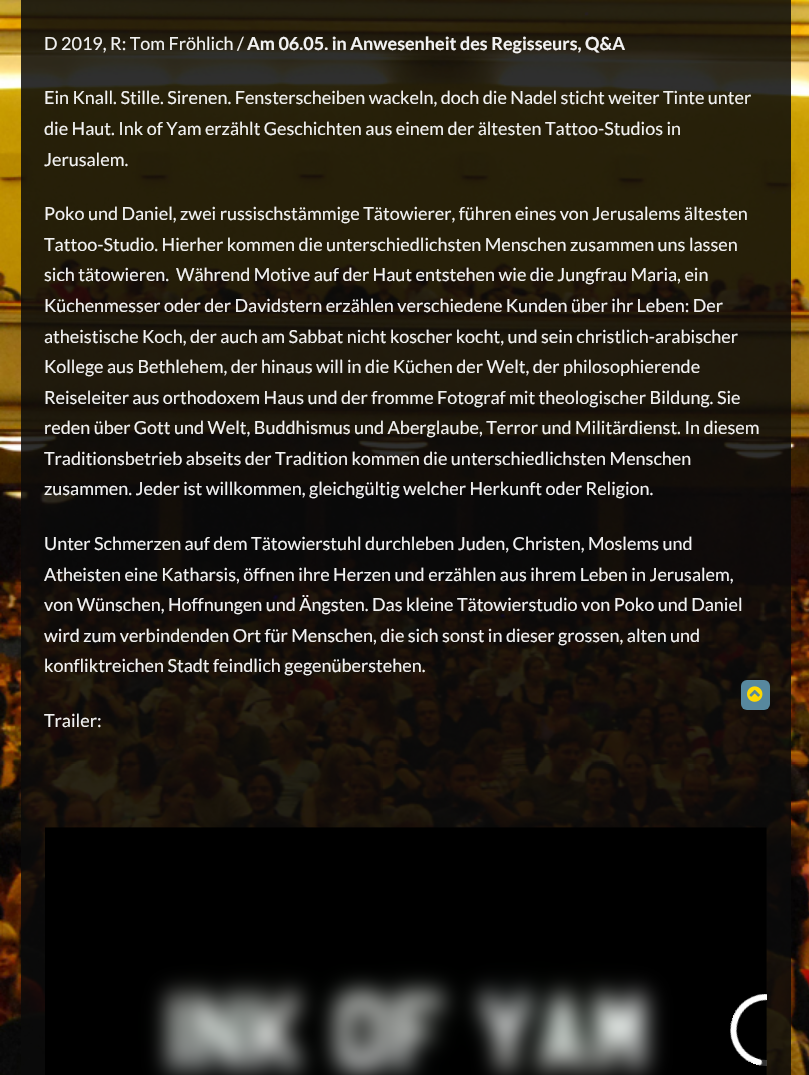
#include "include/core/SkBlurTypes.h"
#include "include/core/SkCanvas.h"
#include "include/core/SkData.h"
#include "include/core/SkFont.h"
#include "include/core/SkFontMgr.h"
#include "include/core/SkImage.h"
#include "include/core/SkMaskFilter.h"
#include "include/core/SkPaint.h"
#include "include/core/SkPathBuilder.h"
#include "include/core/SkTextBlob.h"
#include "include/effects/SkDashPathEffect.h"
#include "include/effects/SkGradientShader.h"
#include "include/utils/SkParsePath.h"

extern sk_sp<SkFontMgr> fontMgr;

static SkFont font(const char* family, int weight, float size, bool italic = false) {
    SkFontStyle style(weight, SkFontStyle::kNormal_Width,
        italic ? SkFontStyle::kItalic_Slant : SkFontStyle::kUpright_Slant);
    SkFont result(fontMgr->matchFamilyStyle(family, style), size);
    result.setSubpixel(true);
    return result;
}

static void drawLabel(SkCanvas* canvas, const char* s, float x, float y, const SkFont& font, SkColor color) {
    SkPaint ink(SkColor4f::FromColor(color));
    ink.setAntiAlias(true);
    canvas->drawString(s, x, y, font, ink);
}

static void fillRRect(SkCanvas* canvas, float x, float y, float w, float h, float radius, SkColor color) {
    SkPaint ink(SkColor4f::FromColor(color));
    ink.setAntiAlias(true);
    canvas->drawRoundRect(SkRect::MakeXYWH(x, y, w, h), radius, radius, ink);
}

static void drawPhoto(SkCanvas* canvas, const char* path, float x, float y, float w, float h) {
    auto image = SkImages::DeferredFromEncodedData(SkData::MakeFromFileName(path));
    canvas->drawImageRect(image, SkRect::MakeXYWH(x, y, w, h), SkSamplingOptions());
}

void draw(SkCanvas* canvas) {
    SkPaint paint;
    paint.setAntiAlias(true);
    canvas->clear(0xFFFFFFFF);
    drawPhoto(canvas, "assets/img1.png", 0, 0, 809, 1075);
    SkFont font1 = font("Lato", 400, 18);
    drawLabel(canvas, "D 2019, R: Tom Fröhlich /", 44, 50, font1, 0xFFF2F2F2);
    SkFont font2 = font("Lato", 700, 18);
    drawLabel(canvas, "Am 06.05. in Anwesenheit des Regisseurs, Q&A", 247, 50, font2, 0xFFF2F2F2);
    drawLabel(canvas, "Ein Knall. Stille. Sirenen. Fensterscheiben wackeln, doch die Nadel sticht weiter Tinte unter", 44, 104, font1, 0xFFF2F2F2);
    drawLabel(canvas, "die Haut. Ink of Yam erzählt Geschichten aus einem der ältesten Tattoo-Studios in", 44, 135, font1, 0xFFF2F2F2);
    drawLabel(canvas, "Jerusalem.", 44, 166, font1, 0xFFF2F2F2);
    drawLabel(canvas, "Poko und Daniel, zwei russischstämmige Tätowierer, führen eines von Jerusalems ältesten", 44, 220, font1, 0xFFF2F2F2);
    drawLabel(canvas, "Tattoo-Studio. Hierher kommen die unterschiedlichsten Menschen zusammen uns lassen", 44, 251, font1, 0xFFF2F2F2);
    drawLabel(canvas, "sich tätowieren.  Während Motive auf der Haut entstehen wie die Jungfrau Maria, ein", 44, 281, font1, 0xFFF2F2F2);
    drawLabel(canvas, "Küchenmesser oder der Davidstern erzählen verschiedene Kunden über ihr Leben: Der", 44, 312, font1, 0xFFF2F2F2);
    drawLabel(canvas, "atheistische Koch, der auch am Sabbat nicht koscher kocht, und sein christlich-arabischer", 44, 343, font1, 0xFFF2F2F2);
    drawLabel(canvas, "Kollege aus Bethlehem, der hinaus will in die Küchen der Welt, der philosophierende", 44, 373, font1, 0xFFF2F2F2);
    drawLabel(canvas, "Reiseleiter aus orthodoxem Haus und der fromme Fotograf mit theologischer Bildung. Sie", 44, 404, font1, 0xFFF2F2F2);
    drawLabel(canvas, "reden über Gott und Welt, Buddhismus und Aberglaube, Terror und Militärdienst. In diesem", 44, 434, font1, 0xFFF2F2F2);
    drawLabel(canvas, "Traditionsbetrieb abseits der Tradition kommen die unterschiedlichsten Menschen", 44, 465, font1, 0xFFF2F2F2);
    drawLabel(canvas, "zusammen. Jeder ist willkommen, gleichgültig welcher Herkunft oder Religion.", 44, 495, font1, 0xFFF2F2F2);
    drawLabel(canvas, "Unter Schmerzen auf dem Tätowierstuhl durchleben Juden, Christen, Moslems und", 44, 550, font1, 0xFFF2F2F2);
    drawLabel(canvas, "Atheisten eine Katharsis, öffnen ihre Herzen und erzählen aus ihrem Leben in Jerusalem,", 44, 581, font1, 0xFFF2F2F2);
    drawLabel(canvas, "von Wünschen, Hoffnungen und Ängsten. Das kleine Tätowierstudio von Poko und Daniel", 44, 611, font1, 0xFFF2F2F2);
    drawLabel(canvas, "wird zum verbindenden Ort für Menschen, die sich sonst in dieser grossen, alten und", 44, 642, font1, 0xFFF2F2F2);
    drawLabel(canvas, "konfliktreichen Stadt feindlich gegenüberstehen.", 44, 672, font1, 0xFFF2F2F2);
    drawLabel(canvas, "Trailer:", 44, 727, font1, 0xFFF2F2F2);
    drawPhoto(canvas, "assets/img2.png", 45, 827, 722, 248);
    fillRRect(canvas, 741, 680, 29, 30, 6, 0xFF57889E);
    drawPhoto(canvas, "assets/img3.png", 747, 686, 16, 16);
}
